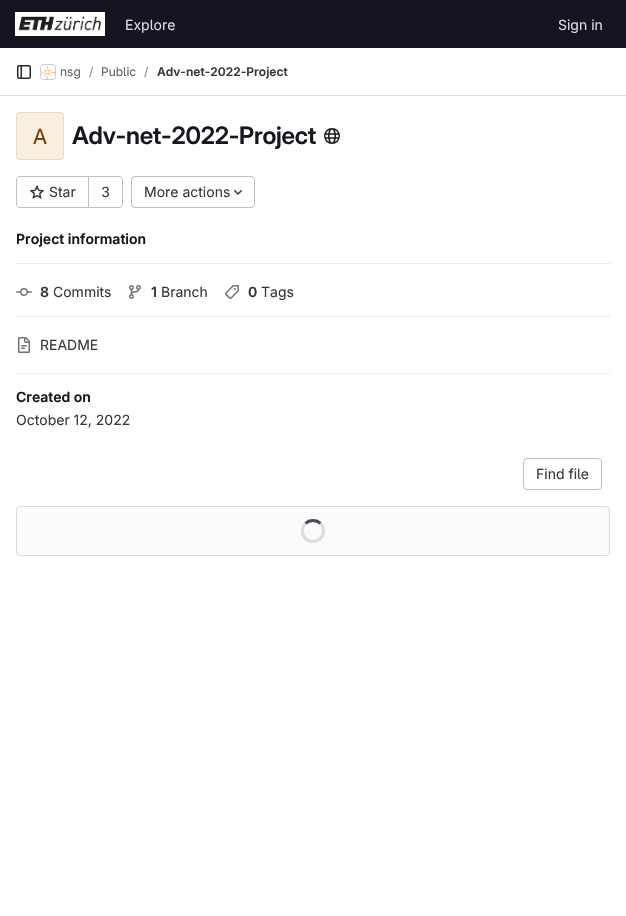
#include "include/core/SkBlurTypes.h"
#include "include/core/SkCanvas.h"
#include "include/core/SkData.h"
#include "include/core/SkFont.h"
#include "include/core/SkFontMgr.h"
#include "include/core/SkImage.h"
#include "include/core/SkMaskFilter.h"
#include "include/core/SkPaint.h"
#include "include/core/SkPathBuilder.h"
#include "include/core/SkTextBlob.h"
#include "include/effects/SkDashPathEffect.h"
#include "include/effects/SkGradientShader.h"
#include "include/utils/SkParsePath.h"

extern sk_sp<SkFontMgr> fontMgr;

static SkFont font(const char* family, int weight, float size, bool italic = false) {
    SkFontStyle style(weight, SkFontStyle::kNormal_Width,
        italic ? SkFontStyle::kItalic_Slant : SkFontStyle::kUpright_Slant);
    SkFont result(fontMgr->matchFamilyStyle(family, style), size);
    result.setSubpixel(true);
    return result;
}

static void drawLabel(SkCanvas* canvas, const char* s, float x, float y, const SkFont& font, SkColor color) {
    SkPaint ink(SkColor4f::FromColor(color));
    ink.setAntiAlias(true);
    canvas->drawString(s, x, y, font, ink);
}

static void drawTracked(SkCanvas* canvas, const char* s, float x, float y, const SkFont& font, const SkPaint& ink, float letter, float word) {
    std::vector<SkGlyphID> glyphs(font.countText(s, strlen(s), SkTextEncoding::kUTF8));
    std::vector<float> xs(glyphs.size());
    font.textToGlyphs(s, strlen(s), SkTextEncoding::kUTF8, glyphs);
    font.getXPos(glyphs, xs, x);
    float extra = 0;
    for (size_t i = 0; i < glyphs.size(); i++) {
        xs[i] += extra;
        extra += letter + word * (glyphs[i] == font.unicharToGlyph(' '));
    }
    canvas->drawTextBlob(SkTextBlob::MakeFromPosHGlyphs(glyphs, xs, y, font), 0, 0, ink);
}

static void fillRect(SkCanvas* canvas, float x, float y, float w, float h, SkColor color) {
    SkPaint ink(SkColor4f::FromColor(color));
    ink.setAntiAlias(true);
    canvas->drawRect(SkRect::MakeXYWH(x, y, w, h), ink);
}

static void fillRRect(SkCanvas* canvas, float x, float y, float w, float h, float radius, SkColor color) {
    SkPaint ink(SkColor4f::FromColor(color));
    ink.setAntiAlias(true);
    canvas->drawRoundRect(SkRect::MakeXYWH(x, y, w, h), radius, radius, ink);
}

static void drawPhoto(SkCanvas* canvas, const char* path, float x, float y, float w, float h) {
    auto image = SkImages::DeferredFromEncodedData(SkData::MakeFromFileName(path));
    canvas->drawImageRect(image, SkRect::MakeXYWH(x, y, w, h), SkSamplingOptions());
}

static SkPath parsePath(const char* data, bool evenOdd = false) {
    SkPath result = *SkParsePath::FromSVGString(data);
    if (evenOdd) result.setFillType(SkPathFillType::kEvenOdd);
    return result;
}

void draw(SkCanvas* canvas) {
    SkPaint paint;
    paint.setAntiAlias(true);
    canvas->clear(0xFFFFFFFF);
    fillRect(canvas, 0, 0, 626, 48, 0xFF171321);
    drawPhoto(canvas, "assets/img1.png", 15, 12, 90, 24);
    SkFont font1 = font("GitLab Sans", 400, 14);
    drawLabel(canvas, "Explore", 125, 30, font1, 0xFFDCDCDE);
    drawLabel(canvas, "Sign in", 558, 30, font1, 0xFFDCDCDE);
    fillRect(canvas, 0, 95, 626, 1, 0xFFDCDCDE);
    drawPhoto(canvas, "assets/img2.png", 17, 65, 14, 14);
    paint.setStroke(true);
    paint.setStrokeWidth(1);
    paint.setColor(0xFFDCDCDE);
    canvas->drawRoundRect(SkRect::MakeXYWH(40.5f, 64.5f, 15, 15), 3.5f, 3.5f, paint);
    drawPhoto(canvas, "assets/img3.png", 41, 66, 14, 13);
    paint.setColor(0x14050506);
    canvas->drawRoundRect(SkRect::MakeXYWH(40.5f, 64.5f, 15, 15), 3.5f, 3.5f, paint);
    SkFont font2 = font("GitLab Sans", 400, 12);
    drawLabel(canvas, "nsg", 60, 76, font2, 0xFF626168);
    drawLabel(canvas, "/", 89, 76, font2, 0xFF89888D);
    drawLabel(canvas, "Public", 101, 76, font2, 0xFF626168);
    drawLabel(canvas, "/", 144, 76, font2, 0xFF89888D);
    SkFont font3 = font("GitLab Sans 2", 600, 12);
    drawLabel(canvas, "Adv-net-2022-Project", 157, 76, font3, 0xFF3A383F);
    fillRRect(canvas, 16, 112, 48, 48, 4, 0xFFFAEFDE);
    canvas->drawRoundRect(SkRect::MakeXYWH(16.5f, 112.5f, 47, 47), 3.5f, 3.5f, paint);
    SkFont font4 = font("GitLab Sans 2", 400, 21);
    drawLabel(canvas, "A", 33, 144, font4, 0xFF703800);
    SkFont font5 = font("GitLab Sans", 600, 24);
    paint.setStroke(false);
    paint.setColor(0xFF18171D);
    drawTracked(canvas, "Adv-net-2022-Project", 72, 144, font5, paint, -0.25f, 0);
    drawPhoto(canvas, "assets/img4.png", 324, 128, 16, 16);
    paint.setStroke(true);
    paint.setColor(0xFFBFBFC3);
    canvas->drawPath(parsePath("M20 176.5H88.5V207.5H20C18 207.5 16.5 206 16.5 204V180C16.5 178 18 176.5 20 176.5Z"), paint);
    drawPhoto(canvas, "assets/img5.png", 30, 185, 14, 14);
    drawLabel(canvas, "Star", 49, 197, font1, 0xFF3A383F);
    paint.setStroke(false);
    paint.setColor(0xFFFFFFFF);
    canvas->drawPath(parsePath("M88.5 176.5H119C121 176.5 122.5 178 122.5 180V204C122.5 206 121 207.5 119 207.5H88.5Z"), paint);
    paint.setStroke(true);
    paint.setColor(0xFFBFBFC3);
    canvas->drawPath(parsePath("M88.5 176.5H119C121 176.5 122.5 178 122.5 180V204C122.5 206 121 207.5 119 207.5H88.5Z"), paint);
    drawLabel(canvas, "3", 101, 197, font1, 0xFF3A383F);
    canvas->drawRoundRect(SkRect::MakeXYWH(131.5f, 176.5f, 123, 31), 3.5f, 3.5f, paint);
    drawLabel(canvas, "More actions", 144, 197, font1, 0xFF3A383F);
    drawPhoto(canvas, "assets/img6.png", 234, 190, 8, 5);
    fillRect(canvas, 16, 263, 594, 1, 0xFFECECEF);
    SkFont font6 = font("GitLab Sans 2", 600, 14);
    drawLabel(canvas, "Project information", 16, 244, font6, 0xFF18171D);
    fillRect(canvas, 16, 316, 594, 1, 0xFFECECEF);
    drawPhoto(canvas, "assets/img7.png", 16, 288, 16, 8);
    drawLabel(canvas, "8", 40, 297, font6, 0xFF3A383F);
    drawLabel(canvas, "Commits", 53, 297, font1, 0xFF3A383F);
    drawPhoto(canvas, "assets/img8.png", 129, 285, 12, 14);
    drawLabel(canvas, "1", 151, 297, font6, 0xFF3A383F);
    drawLabel(canvas, "Branch", 161, 297, font1, 0xFF3A383F);
    drawPhoto(canvas, "assets/img9.png", 225, 285, 14, 14);
    drawLabel(canvas, "0", 248, 297, font6, 0xFF3A383F);
    drawLabel(canvas, "Tags", 261, 297, font1, 0xFF3A383F);
    fillRect(canvas, 16, 373, 594, 1, 0xFFECECEF);
    drawPhoto(canvas, "assets/img10.png", 18, 337, 12, 16);
    drawLabel(canvas, "README", 40, 350, font1, 0xFF3A383F);
    drawLabel(canvas, "Created on", 16, 402, font6, 0xFF18171D);
    drawLabel(canvas, "October 12, 2022", 16, 425, font1, 0xFF3A383F);
    canvas->drawRoundRect(SkRect::MakeXYWH(523.5f, 458.5f, 78, 31), 3.5f, 3.5f, paint);
    drawLabel(canvas, "Find file", 536, 479, font1, 0xFF3A383F);
    paint.setStroke(false);
    paint.setColor(0xFFFBFAFD);
    canvas->drawRoundRect(SkRect::MakeXYWH(16.5f, 506.5f, 593, 49), 3.5f, 3.5f, paint);
    paint.setStroke(true);
    paint.setColor(0xFFDCDCDE);
    canvas->drawRoundRect(SkRect::MakeXYWH(16.5f, 506.5f, 593, 49), 3.5f, 3.5f, paint);
    paint.setStrokeWidth(3);
    paint.setColor(0xFF4C4B51);
    canvas->drawPath(parsePath("M305.5 523.5C309.5 519.5 316.5 519.5 320.5 523.5"), paint);
    paint.setColor(0xFFDCDCDE);
    canvas->drawPath(parsePath("M320.5 523.5C322.5 525.5 323.5 528 323.5 531C323.5 543.5 305 545.5 302.5 533C302 529.5 303 526 305.5 523.5"), paint);
}
